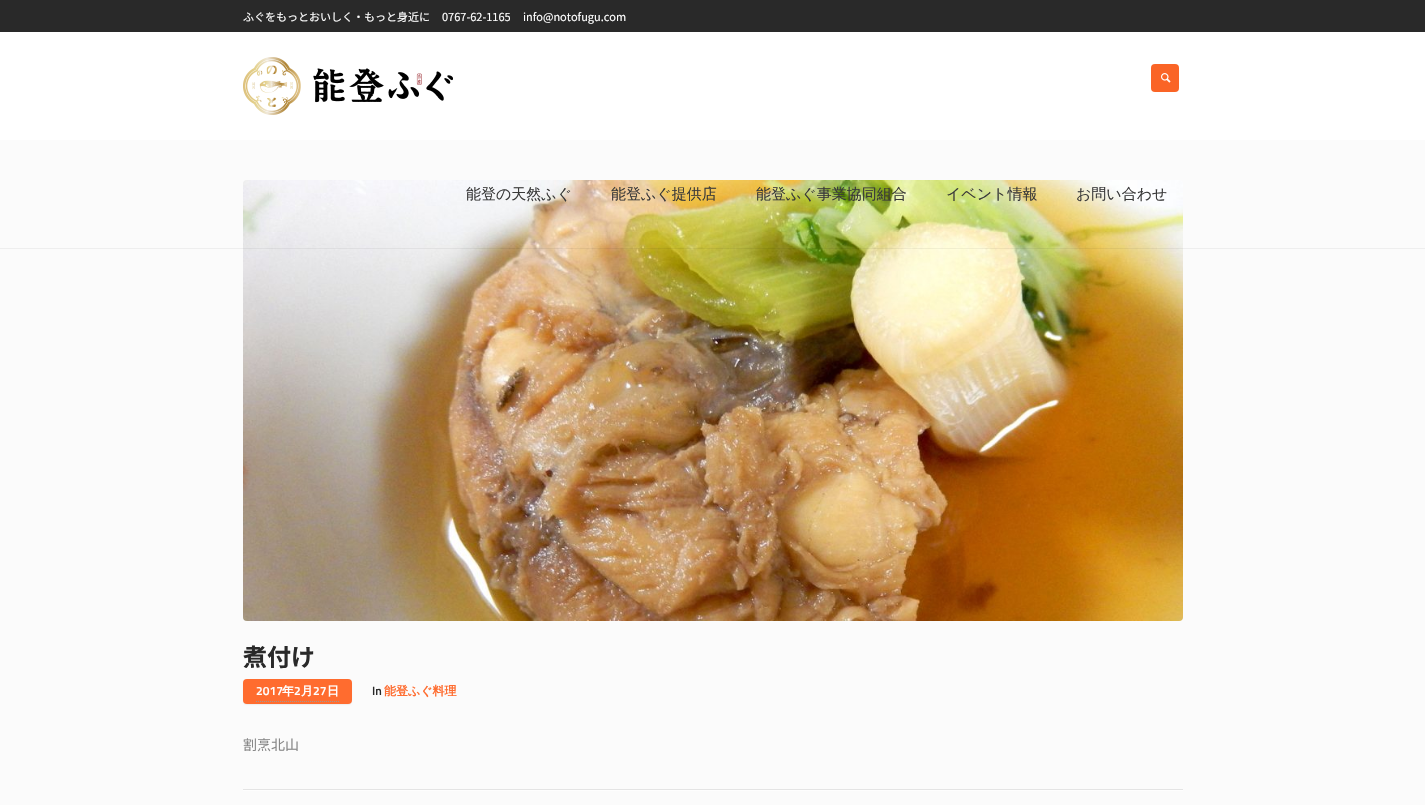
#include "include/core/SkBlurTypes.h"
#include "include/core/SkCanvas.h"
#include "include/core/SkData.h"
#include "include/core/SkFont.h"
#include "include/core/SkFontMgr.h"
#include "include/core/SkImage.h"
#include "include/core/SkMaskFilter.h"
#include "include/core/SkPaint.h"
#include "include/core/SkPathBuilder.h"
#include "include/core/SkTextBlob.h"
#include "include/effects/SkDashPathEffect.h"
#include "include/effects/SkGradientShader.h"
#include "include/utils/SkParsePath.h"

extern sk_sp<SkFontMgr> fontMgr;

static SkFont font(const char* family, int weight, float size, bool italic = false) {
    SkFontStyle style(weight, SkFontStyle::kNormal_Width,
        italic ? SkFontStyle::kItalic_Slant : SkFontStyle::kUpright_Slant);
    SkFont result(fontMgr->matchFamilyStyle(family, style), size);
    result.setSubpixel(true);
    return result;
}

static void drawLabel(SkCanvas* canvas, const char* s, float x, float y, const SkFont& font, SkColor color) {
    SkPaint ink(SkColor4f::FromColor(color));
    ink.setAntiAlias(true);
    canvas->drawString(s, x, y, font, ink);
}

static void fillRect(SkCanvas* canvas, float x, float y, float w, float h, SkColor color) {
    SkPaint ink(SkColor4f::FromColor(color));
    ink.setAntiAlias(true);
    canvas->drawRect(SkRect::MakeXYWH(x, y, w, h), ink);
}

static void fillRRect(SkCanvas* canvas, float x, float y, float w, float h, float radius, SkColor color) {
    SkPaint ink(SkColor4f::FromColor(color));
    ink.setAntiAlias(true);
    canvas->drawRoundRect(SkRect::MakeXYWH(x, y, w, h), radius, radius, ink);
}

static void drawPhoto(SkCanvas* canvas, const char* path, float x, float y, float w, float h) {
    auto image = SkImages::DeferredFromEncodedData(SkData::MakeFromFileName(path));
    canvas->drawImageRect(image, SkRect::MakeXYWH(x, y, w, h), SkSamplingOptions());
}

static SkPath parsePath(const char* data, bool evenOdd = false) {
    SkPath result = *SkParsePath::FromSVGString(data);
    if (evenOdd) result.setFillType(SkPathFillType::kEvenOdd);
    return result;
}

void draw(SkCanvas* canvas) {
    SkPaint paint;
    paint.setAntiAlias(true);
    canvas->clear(0xFFFBFBFB);
    drawPhoto(canvas, "assets/img3.png", 243, 180, 940, 441);
    canvas->save();
    canvas->clipRect(SkRect::MakeXYWH(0, 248, 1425, 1));
    paint.setColor(0x0D000000);
    paint.setMaskFilter(SkMaskFilter::MakeBlur(kNormal_SkBlurStyle, 0.5f));
    canvas->drawRect(SkRect::MakeXYWH(0, 1, 1425, 248), paint);
    paint.setMaskFilter(nullptr);
    canvas->restore();
    fillRect(canvas, 0, 0, 1425, 32, 0xFF292929);
    SkFont font1 = font("Noto Sans JP", 400, 11);
    drawLabel(canvas, "ふぐをもっとおいしく・もっと身近に", 243, 21, font1, 0xFFFFFFFF);
    drawLabel(canvas, "0767-62-1165", 442, 21, font1, 0xFFFFFFFF);
    drawLabel(canvas, "info@notofugu.com", 523, 21, font1, 0xFFFFFFFF);
    fillRect(canvas, 0, 32, 1425, 108, 0xFFFFFFFF);
    drawPhoto(canvas, "assets/img1.png", 243, 57, 210, 58);
    fillRRect(canvas, 1151, 64, 28, 28, 4, 0xFFFA6426);
    drawPhoto(canvas, "assets/img2.png", 1161, 73, 10, 10);
    SkFont font2 = font("WenQuanYi Zen Hei", 500, 15);
    drawLabel(canvas, "能登の天然ふぐ", 466, 199, font2, 0xFF393939);
    drawLabel(canvas, "能登ふぐ提供店", 611, 199, font2, 0xFF393939);
    drawLabel(canvas, "能登ふぐ事業協同組合", 756, 199, font2, 0xFF393939);
    drawLabel(canvas, "イベント情報", 946, 199, font2, 0xFF393939);
    drawLabel(canvas, "お問い合わせ", 1076, 199, font2, 0xFF393939);
    fillRect(canvas, 243, 790, 940, 1, 0xFFFEFEFE);
    fillRect(canvas, 243, 789, 940, 1, 0xFFE4E4E4);
    SkFont font3 = font("Noto Sans JP", 700, 24);
    drawLabel(canvas, "煮付け", 243, 666, font3, 0xFF292929);
    paint.setMaskFilter(SkMaskFilter::MakeBlur(kNormal_SkBlurStyle, 0.5f));
    canvas->drawRoundRect(SkRect::MakeXYWH(243, 680, 109, 25), 4, 4, paint);
    paint.setMaskFilter(nullptr);
    fillRRect(canvas, 243, 679, 109, 25, 4, 0xFFFF6C2F);
    paint.setStroke(true);
    paint.setStrokeWidth(1);
    paint.setColor(0xFF999999);
    paint.setPathEffect(SkDashPathEffect::Make({{1, 1}}, 0));
    canvas->drawPath(parsePath("M256 701.5H339"), paint);
    paint.setPathEffect(nullptr);
    SkFont font4 = font("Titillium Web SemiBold", 600, 12);
    drawLabel(canvas, "2017", 256, 695, font4, 0xFFFFFFFF);
    SkFont font5 = font("WenQuanYi Zen Hei", 700, 12);
    drawLabel(canvas, "年", 282, 695, font5, 0xFFFFFFFF);
    drawLabel(canvas, "2", 294, 695, font4, 0xFFFFFFFF);
    drawLabel(canvas, "月", 301, 695, font5, 0xFFFFFFFF);
    drawLabel(canvas, "27", 313, 695, font4, 0xFFFFFFFF);
    drawLabel(canvas, "日", 327, 695, font5, 0xFFFFFFFF);
    drawLabel(canvas, "In", 372, 695, font4, 0xFF292929);
    drawLabel(canvas, "能登ふぐ料理", 384, 695, font5, 0xFFFF6C2F);
    SkFont font6 = font("Noto Sans JP", 400, 14);
    drawLabel(canvas, "割烹北山", 243, 750, font6, 0xFF878787);
}
